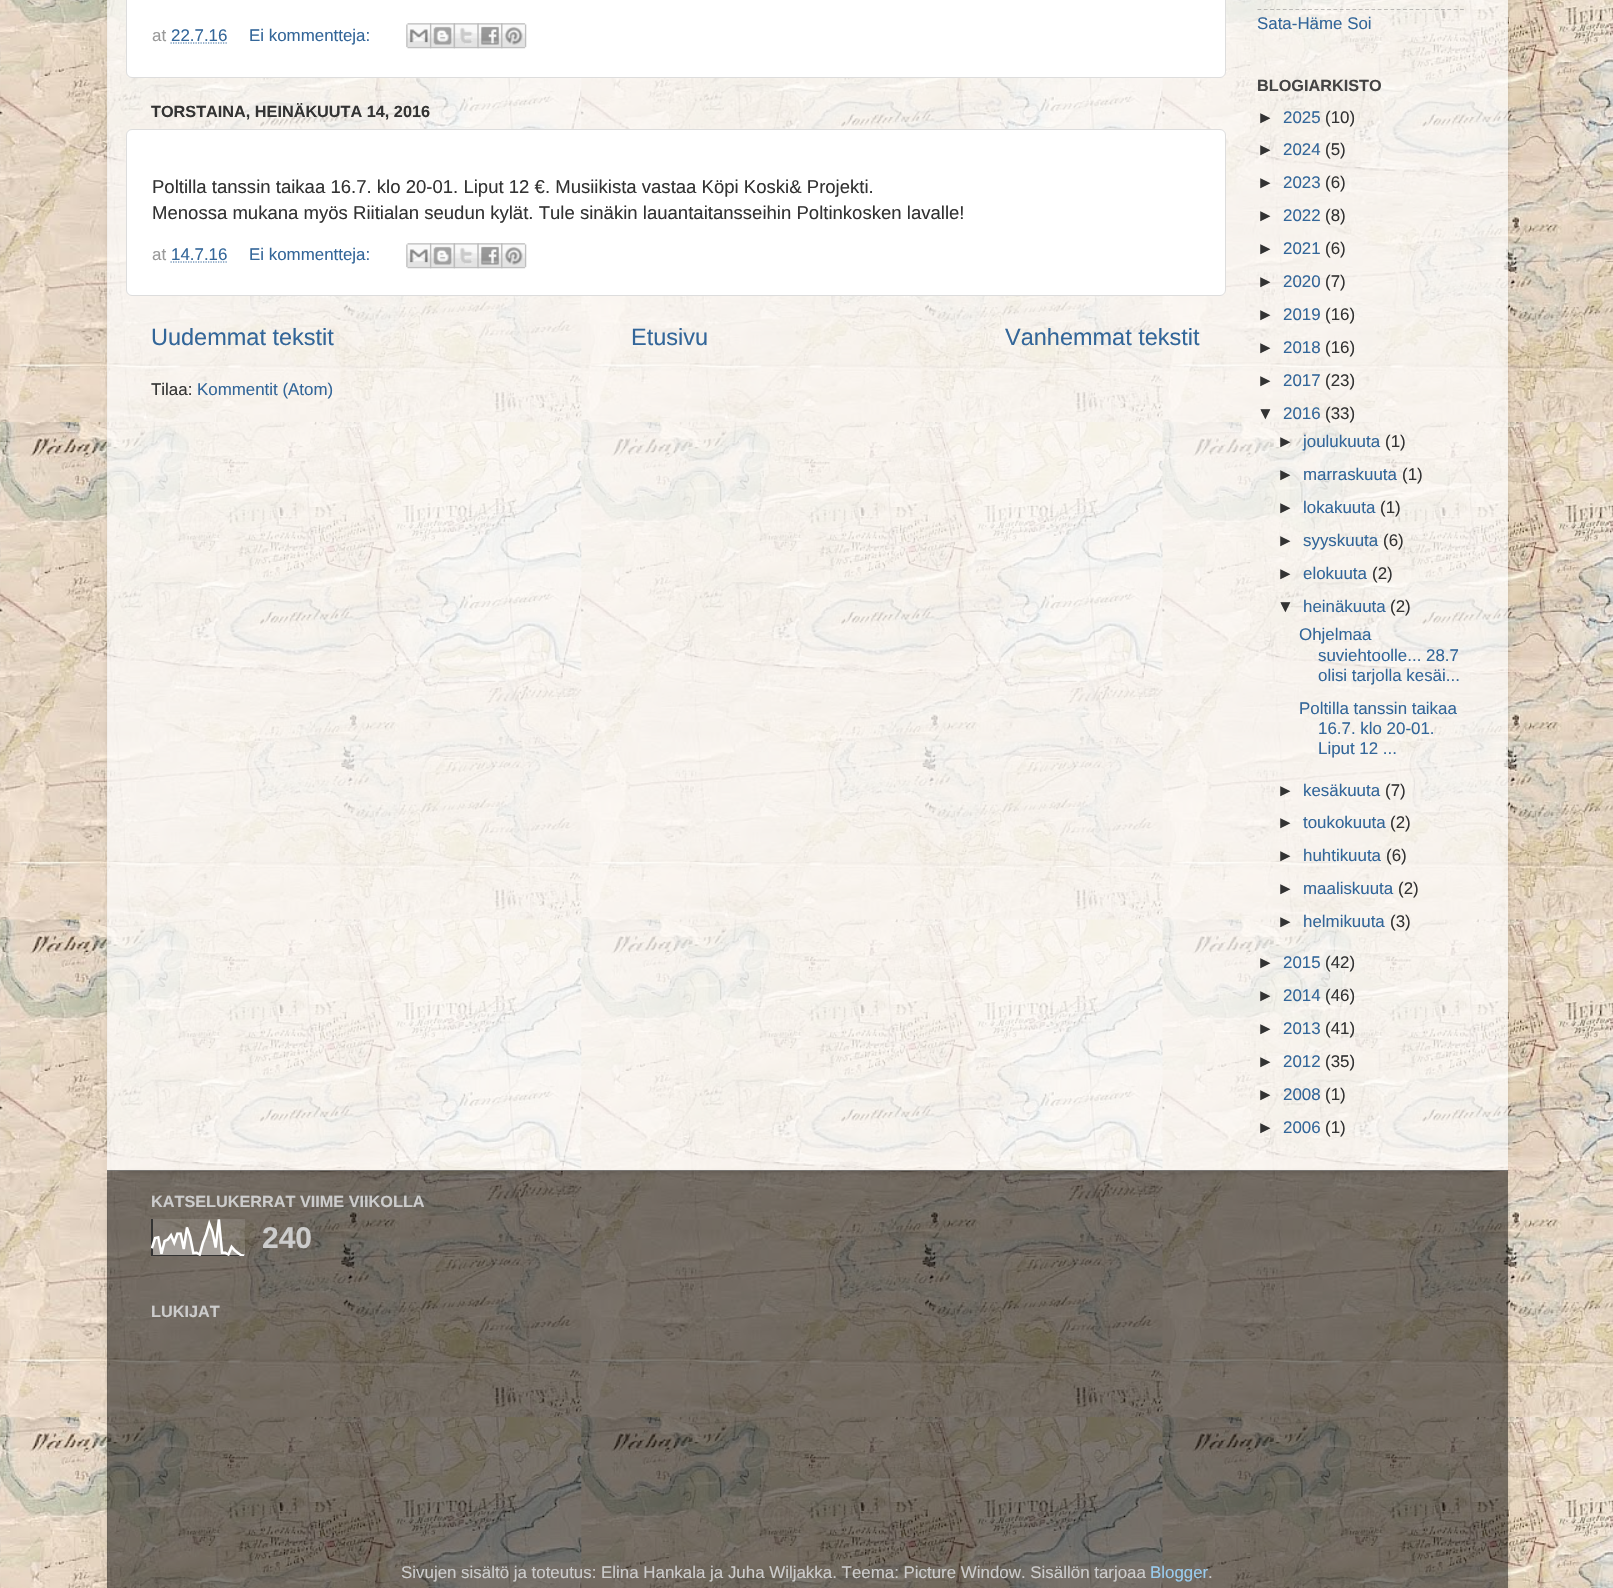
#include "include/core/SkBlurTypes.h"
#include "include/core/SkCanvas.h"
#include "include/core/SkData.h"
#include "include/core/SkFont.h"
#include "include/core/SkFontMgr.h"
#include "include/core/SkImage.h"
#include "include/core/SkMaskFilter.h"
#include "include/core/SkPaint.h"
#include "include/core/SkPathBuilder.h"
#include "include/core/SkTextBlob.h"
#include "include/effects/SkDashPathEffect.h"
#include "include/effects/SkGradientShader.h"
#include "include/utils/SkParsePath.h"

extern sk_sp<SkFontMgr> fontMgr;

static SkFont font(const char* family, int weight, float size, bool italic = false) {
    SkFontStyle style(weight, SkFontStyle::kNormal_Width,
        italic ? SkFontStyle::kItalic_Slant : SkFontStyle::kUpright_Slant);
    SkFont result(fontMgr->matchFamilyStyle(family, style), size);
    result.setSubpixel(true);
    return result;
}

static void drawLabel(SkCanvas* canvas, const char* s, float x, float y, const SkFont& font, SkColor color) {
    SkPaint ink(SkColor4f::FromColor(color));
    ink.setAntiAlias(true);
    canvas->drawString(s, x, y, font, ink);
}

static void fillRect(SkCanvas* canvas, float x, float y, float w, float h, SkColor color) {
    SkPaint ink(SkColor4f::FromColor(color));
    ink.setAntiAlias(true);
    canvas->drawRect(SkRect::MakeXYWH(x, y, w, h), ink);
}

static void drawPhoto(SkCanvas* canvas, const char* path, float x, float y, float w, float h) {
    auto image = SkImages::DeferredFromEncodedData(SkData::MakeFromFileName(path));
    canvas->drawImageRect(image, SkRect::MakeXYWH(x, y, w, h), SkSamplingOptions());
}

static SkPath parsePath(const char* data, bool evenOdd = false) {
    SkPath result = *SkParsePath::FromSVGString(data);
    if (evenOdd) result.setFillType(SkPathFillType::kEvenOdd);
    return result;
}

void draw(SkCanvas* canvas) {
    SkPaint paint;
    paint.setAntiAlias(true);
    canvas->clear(0xFFFFFFFF);
    drawPhoto(canvas, "assets/img1.png", 0, 0, 1613, 1588);
    canvas->save();
    canvas->clipPath(parsePath("M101 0H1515V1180H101ZM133-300H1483C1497-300 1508-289 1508-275V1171H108V-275C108-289 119-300 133-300Z", true), true);
    paint.setColor(0x26000000);
    paint.setMaskFilter(SkMaskFilter::MakeBlur(kNormal_SkBlurStyle, 2));
    canvas->drawRoundRect(SkRect::MakeXYWH(108, -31, 1400, 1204), 25, 25, paint);
    paint.setMaskFilter(nullptr);
    canvas->restore();
    fillRect(canvas, 107, 0, 1401, 1171, 0xB3FFFFFF);
    paint.setColor(0xFFFFFFFF);
    canvas->drawRoundRect(SkRect::MakeXYWH(126.5f, -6.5f, 1099, 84), 5.5f, 5.5f, paint);
    paint.setStroke(true);
    paint.setStrokeWidth(1);
    paint.setColor(0xFFDDDDDD);
    canvas->drawRoundRect(SkRect::MakeXYWH(126.5f, -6.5f, 1099, 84), 5.5f, 5.5f, paint);
    SkFont font1 = font("Liberation Sans", 400, 16.9f);
    drawLabel(canvas, "at", 152, 41, font1, 0xFF999999);
    drawLabel(canvas, "22.7.16", 171, 41, font1, 0xFF336699);
    paint.setStrokeWidth(1.2f);
    paint.setColor(0xFF336699);
    paint.setPathEffect(SkDashPathEffect::Make({{1.25f, 1.25f}}, 0));
    canvas->drawPath(parsePath("M170.5 43H227"), paint);
    paint.setPathEffect(nullptr);
    drawLabel(canvas, "Ei kommentteja:", 249, 41, font1, 0xFF336699);
    drawPhoto(canvas, "assets/img2.png", 406, 23, 26, 26);
    drawPhoto(canvas, "assets/img3.png", 430, 23, 25, 26);
    drawPhoto(canvas, "assets/img4.png", 453, 23, 26, 26);
    drawPhoto(canvas, "assets/img5.png", 477, 23, 26, 26);
    drawPhoto(canvas, "assets/img6.png", 501, 23, 26, 26);
    SkFont font2 = font("Liberation Sans", 700, 16.25f);
    drawLabel(canvas, "TORSTAINA, HEINÄKUUTA 14, 2016", 151, 117, font2, 0xFF333333);
    paint.setStroke(false);
    paint.setColor(0xFFFFFFFF);
    canvas->drawRoundRect(SkRect::MakeXYWH(126.5f, 129.5f, 1099, 166), 5.5f, 5.5f, paint);
    paint.setStroke(true);
    paint.setStrokeWidth(1);
    paint.setColor(0xFFDDDDDD);
    canvas->drawRoundRect(SkRect::MakeXYWH(126.5f, 129.5f, 1099, 166), 5.5f, 5.5f, paint);
    SkFont font3 = font("Liberation Sans", 400, 18.55f);
    drawLabel(canvas, "Poltilla tanssin taikaa 16.7. klo 20-01. Liput 12 €. Musiikista vastaa Köpi Koski& Projekti.", 152, 193, font3, 0xFF333333);
    drawLabel(canvas, "Menossa mukana myös Riitialan seudun kylät. Tule sinäkin lauantaitansseihin Poltinkosken lavalle!", 152, 219, font3, 0xFF333333);
    drawLabel(canvas, "at", 152, 260, font1, 0xFF999999);
    drawLabel(canvas, "14.7.16", 171, 260, font1, 0xFF336699);
    paint.setStrokeWidth(1.2f);
    paint.setColor(0xFF336699);
    paint.setPathEffect(SkDashPathEffect::Make({{1.25f, 1.25f}}, 0));
    canvas->drawPath(parsePath("M170.5 262H227"), paint);
    paint.setPathEffect(nullptr);
    drawLabel(canvas, "Ei kommentteja:", 249, 260, font1, 0xFF336699);
    drawPhoto(canvas, "assets/img2.png", 406, 243, 26, 26);
    drawPhoto(canvas, "assets/img3.png", 430, 243, 25, 26);
    drawPhoto(canvas, "assets/img4.png", 453, 243, 26, 26);
    drawPhoto(canvas, "assets/img5.png", 477, 243, 26, 26);
    drawPhoto(canvas, "assets/img6.png", 501, 243, 26, 26);
    SkFont font4 = font("Liberation Sans", 400, 23.5f);
    drawLabel(canvas, "Uudemmat tekstit", 151, 345, font4, 0xFF336699);
    drawLabel(canvas, "Etusivu", 631, 345, font4, 0xFF336699);
    drawLabel(canvas, "Vanhemmat tekstit", 1005, 345, font4, 0xFF336699);
    drawLabel(canvas, "Tilaa:", 151, 395, font1, 0xFF333333);
    drawLabel(canvas, "Kommentit (Atom)", 197, 395, font1, 0xFF336699);
    paint.setColor(0x80808080);
    paint.setPathEffect(SkDashPathEffect::Make({{3.75f, 2.58f}}, 0));
    canvas->drawPath(parsePath("M1257.5 9.5H1464"), paint);
    paint.setPathEffect(nullptr);
    drawLabel(canvas, "Sata-Häme Soi", 1257, 29, font1, 0xFF336699);
    drawLabel(canvas, "BLOGIARKISTO", 1257, 91, font2, 0xFF444444);
    drawLabel(canvas, "►", 1257, 123, font1, 0xFF333333);
    drawLabel(canvas, "2025", 1283, 123, font1, 0xFF336699);
    drawLabel(canvas, "(10)", 1325, 123, font1, 0xFF333333);
    drawLabel(canvas, "►", 1257, 155, font1, 0xFF333333);
    drawLabel(canvas, "2024", 1283, 155, font1, 0xFF336699);
    drawLabel(canvas, "(5)", 1325, 155, font1, 0xFF333333);
    drawLabel(canvas, "►", 1257, 188, font1, 0xFF333333);
    drawLabel(canvas, "2023", 1283, 188, font1, 0xFF336699);
    drawLabel(canvas, "(6)", 1325, 188, font1, 0xFF333333);
    drawLabel(canvas, "►", 1257, 221, font1, 0xFF333333);
    drawLabel(canvas, "2022", 1283, 221, font1, 0xFF336699);
    drawLabel(canvas, "(8)", 1325, 221, font1, 0xFF333333);
    drawLabel(canvas, "►", 1257, 254, font1, 0xFF333333);
    drawLabel(canvas, "2021", 1283, 254, font1, 0xFF336699);
    drawLabel(canvas, "(6)", 1325, 254, font1, 0xFF333333);
    drawLabel(canvas, "►", 1257, 287, font1, 0xFF333333);
    drawLabel(canvas, "2020", 1283, 287, font1, 0xFF336699);
    drawLabel(canvas, "(7)", 1325, 287, font1, 0xFF333333);
    drawLabel(canvas, "►", 1257, 320, font1, 0xFF333333);
    drawLabel(canvas, "2019", 1283, 320, font1, 0xFF336699);
    drawLabel(canvas, "(16)", 1325, 320, font1, 0xFF333333);
    drawLabel(canvas, "►", 1257, 353, font1, 0xFF333333);
    drawLabel(canvas, "2018", 1283, 353, font1, 0xFF336699);
    drawLabel(canvas, "(16)", 1325, 353, font1, 0xFF333333);
    drawLabel(canvas, "►", 1257, 386, font1, 0xFF333333);
    drawLabel(canvas, "2017", 1283, 386, font1, 0xFF336699);
    drawLabel(canvas, "(23)", 1325, 386, font1, 0xFF333333);
    drawLabel(canvas, "▼", 1257, 419, font1, 0xFF333333);
    drawLabel(canvas, "2016", 1283, 419, font1, 0xFF336699);
    drawLabel(canvas, "(33)", 1325, 419, font1, 0xFF333333);
    drawLabel(canvas, "►", 1277, 447, font1, 0xFF333333);
    drawLabel(canvas, "joulukuuta", 1303, 447, font1, 0xFF336699);
    drawLabel(canvas, "(1)", 1385, 447, font1, 0xFF333333);
    drawLabel(canvas, "►", 1277, 480, font1, 0xFF333333);
    drawLabel(canvas, "marraskuuta", 1303, 480, font1, 0xFF336699);
    drawLabel(canvas, "(1)", 1402, 480, font1, 0xFF333333);
    drawLabel(canvas, "►", 1277, 513, font1, 0xFF333333);
    drawLabel(canvas, "lokakuuta", 1303, 513, font1, 0xFF336699);
    drawLabel(canvas, "(1)", 1380, 513, font1, 0xFF333333);
    drawLabel(canvas, "►", 1277, 546, font1, 0xFF333333);
    drawLabel(canvas, "syyskuuta", 1303, 546, font1, 0xFF336699);
    drawLabel(canvas, "(6)", 1383, 546, font1, 0xFF333333);
    drawLabel(canvas, "►", 1277, 579, font1, 0xFF333333);
    drawLabel(canvas, "elokuuta", 1303, 579, font1, 0xFF336699);
    drawLabel(canvas, "(2)", 1372, 579, font1, 0xFF333333);
    drawLabel(canvas, "▼", 1277, 612, font1, 0xFF333333);
    drawLabel(canvas, "heinäkuuta", 1303, 612, font1, 0xFF336699);
    drawLabel(canvas, "(2)", 1390, 612, font1, 0xFF333333);
    drawLabel(canvas, "Ohjelmaa", 1299, 640, font1, 0xFF336699);
    drawLabel(canvas, "suviehtoolle... 28.7", 1318, 661, font1, 0xFF336699);
    drawLabel(canvas, "olisi tarjolla kesäi...", 1318, 681, font1, 0xFF336699);
    drawLabel(canvas, "Poltilla tanssin taikaa", 1299, 714, font1, 0xFF336699);
    drawLabel(canvas, "16.7. klo 20-01.", 1318, 734, font1, 0xFF336699);
    drawLabel(canvas, "Liput 12 ...", 1318, 754, font1, 0xFF336699);
    drawLabel(canvas, "►", 1277, 796, font1, 0xFF333333);
    drawLabel(canvas, "kesäkuuta", 1303, 796, font1, 0xFF336699);
    drawLabel(canvas, "(7)", 1385, 796, font1, 0xFF333333);
    drawLabel(canvas, "►", 1277, 828, font1, 0xFF333333);
    drawLabel(canvas, "toukokuuta", 1303, 828, font1, 0xFF336699);
    drawLabel(canvas, "(2)", 1390, 828, font1, 0xFF333333);
    drawLabel(canvas, "►", 1277, 861, font1, 0xFF333333);
    drawLabel(canvas, "huhtikuuta", 1303, 861, font1, 0xFF336699);
    drawLabel(canvas, "(6)", 1386, 861, font1, 0xFF333333);
    drawLabel(canvas, "►", 1277, 894, font1, 0xFF333333);
    drawLabel(canvas, "maaliskuuta", 1303, 894, font1, 0xFF336699);
    drawLabel(canvas, "(2)", 1398, 894, font1, 0xFF333333);
    drawLabel(canvas, "►", 1277, 927, font1, 0xFF333333);
    drawLabel(canvas, "helmikuuta", 1303, 927, font1, 0xFF336699);
    drawLabel(canvas, "(3)", 1390, 927, font1, 0xFF333333);
    drawLabel(canvas, "►", 1257, 968, font1, 0xFF333333);
    drawLabel(canvas, "2015", 1283, 968, font1, 0xFF336699);
    drawLabel(canvas, "(42)", 1325, 968, font1, 0xFF333333);
    drawLabel(canvas, "►", 1257, 1001, font1, 0xFF333333);
    drawLabel(canvas, "2014", 1283, 1001, font1, 0xFF336699);
    drawLabel(canvas, "(46)", 1325, 1001, font1, 0xFF333333);
    drawLabel(canvas, "►", 1257, 1034, font1, 0xFF333333);
    drawLabel(canvas, "2013", 1283, 1034, font1, 0xFF336699);
    drawLabel(canvas, "(41)", 1325, 1034, font1, 0xFF333333);
    drawLabel(canvas, "►", 1257, 1067, font1, 0xFF333333);
    drawLabel(canvas, "2012", 1283, 1067, font1, 0xFF336699);
    drawLabel(canvas, "(35)", 1325, 1067, font1, 0xFF333333);
    drawLabel(canvas, "►", 1257, 1100, font1, 0xFF333333);
    drawLabel(canvas, "2008", 1283, 1100, font1, 0xFF336699);
    drawLabel(canvas, "(1)", 1325, 1100, font1, 0xFF333333);
    drawLabel(canvas, "►", 1257, 1133, font1, 0xFF333333);
    drawLabel(canvas, "2006", 1283, 1133, font1, 0xFF336699);
    drawLabel(canvas, "(1)", 1325, 1133, font1, 0xFF333333);
    canvas->save();
    canvas->clipPath(parsePath("M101 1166H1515V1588H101ZM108 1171H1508V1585C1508 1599 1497 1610 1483 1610H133C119 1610 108 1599 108 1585Z", true), true);
    paint.setStroke(false);
    paint.setColor(0x26000000);
    paint.setMaskFilter(SkMaskFilter::MakeBlur(kNormal_SkBlurStyle, 2));
    canvas->drawRoundRect(SkRect::MakeXYWH(108, 1173, 1400, 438), 25, 25, paint);
    paint.setMaskFilter(nullptr);
    canvas->restore();
    fillRect(canvas, 107, 1170, 1401, 418, 0x80000000);
    drawLabel(canvas, "KATSELUKERRAT VIIME VIIKOLLA", 151, 1207, font2, 0xFFCCCCCC);
    drawPhoto(canvas, "assets/img7.png", 151, 1219, 94, 37);
    SkFont font5 = font("Liberation Sans", 700, 30);
    drawLabel(canvas, "240", 262, 1248, font5, 0xFFCCCCCC);
    drawLabel(canvas, "LUKIJAT", 151, 1317, font2, 0xFFCCCCCC);
    drawLabel(canvas, "Sivujen sisältö ja toteutus: Elina Hankala ja Juha Wiljakka. Teema: Picture Window. Sisällön tarjoaa", 401, 1578, font1, 0xFFCCCCCC);
    drawLabel(canvas, "Blogger", 1150, 1578, font1, 0xFF99CCEE);
    drawLabel(canvas, ".", 1208, 1578, font1, 0xFFCCCCCC);
}
